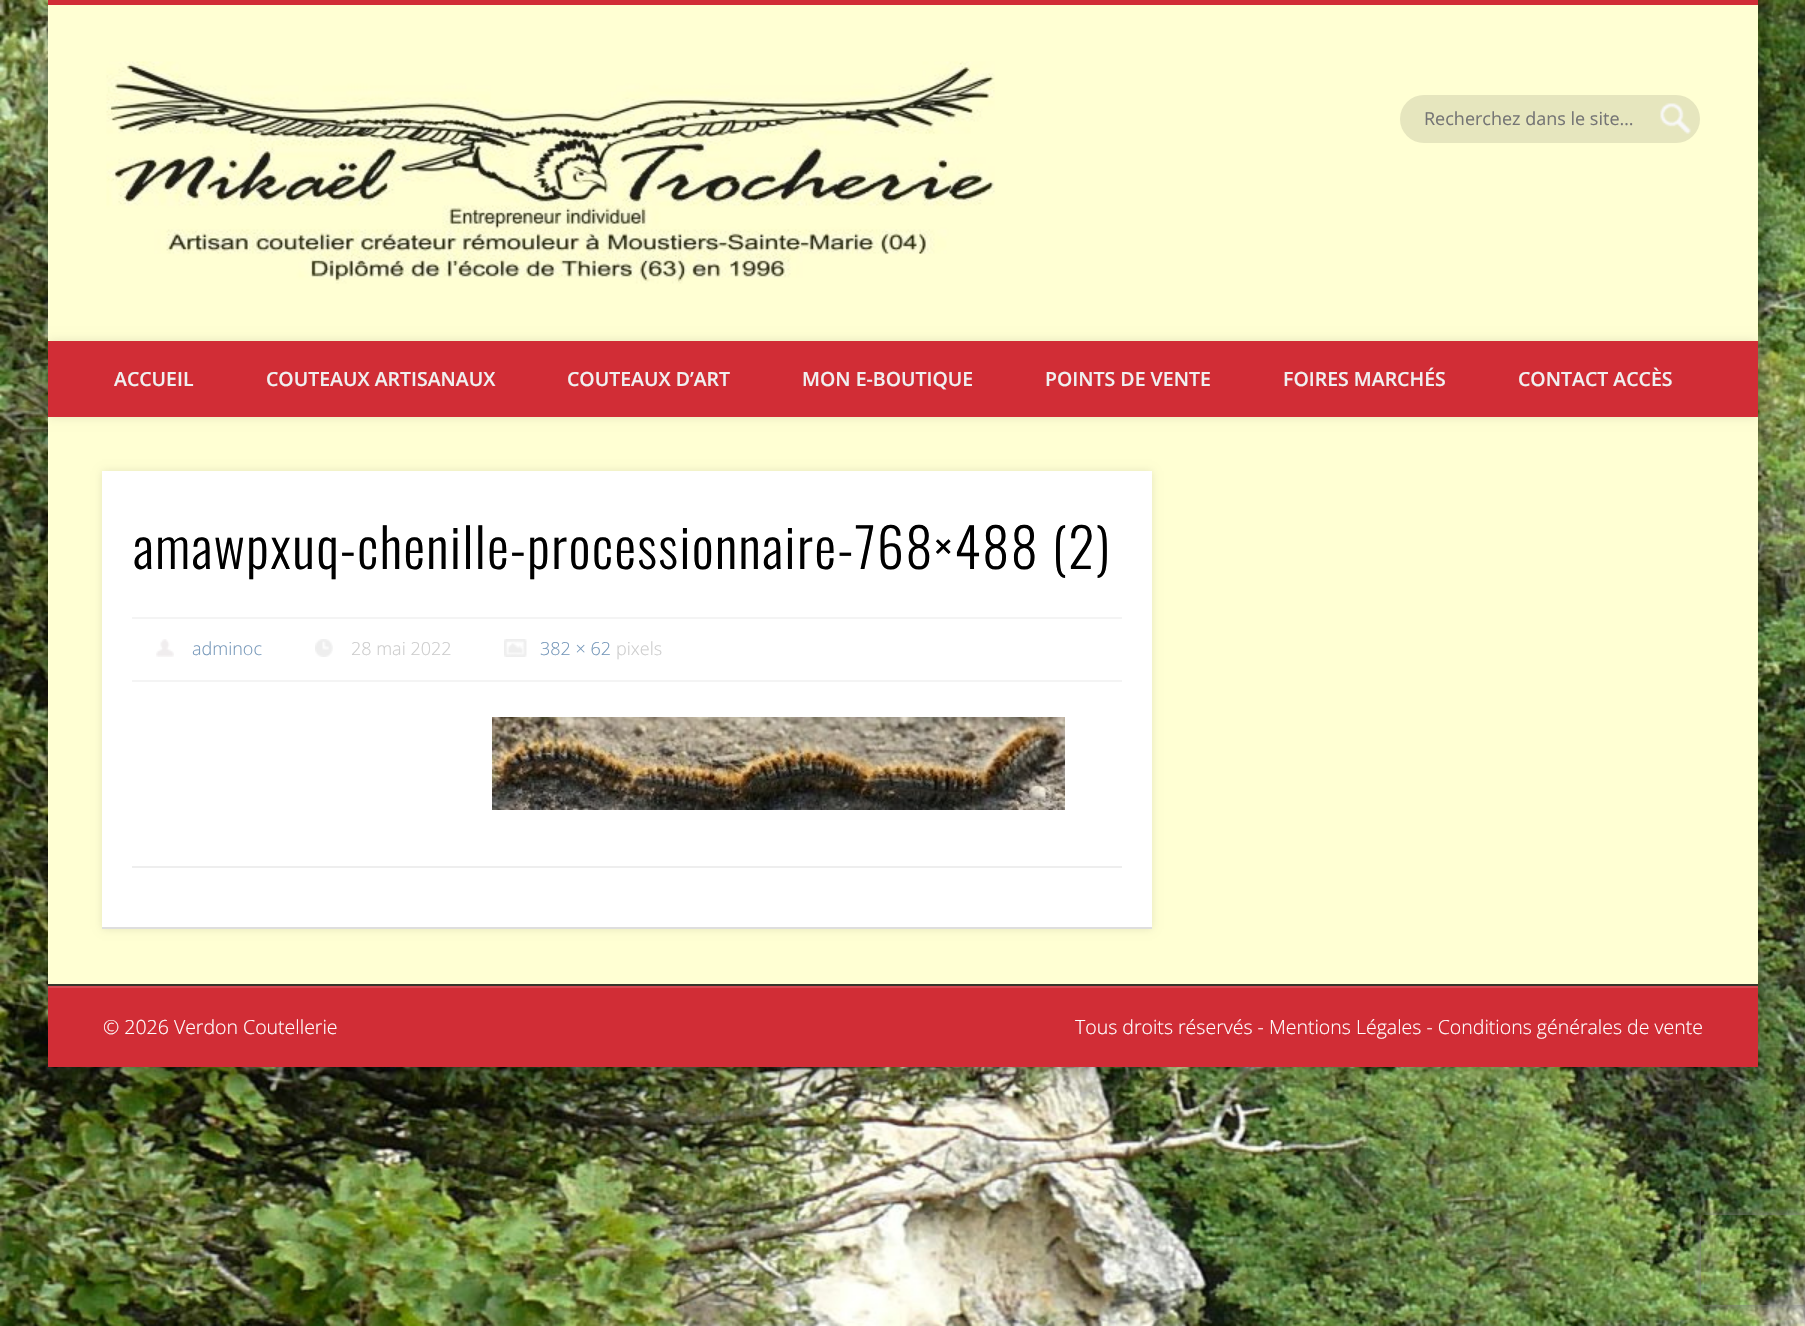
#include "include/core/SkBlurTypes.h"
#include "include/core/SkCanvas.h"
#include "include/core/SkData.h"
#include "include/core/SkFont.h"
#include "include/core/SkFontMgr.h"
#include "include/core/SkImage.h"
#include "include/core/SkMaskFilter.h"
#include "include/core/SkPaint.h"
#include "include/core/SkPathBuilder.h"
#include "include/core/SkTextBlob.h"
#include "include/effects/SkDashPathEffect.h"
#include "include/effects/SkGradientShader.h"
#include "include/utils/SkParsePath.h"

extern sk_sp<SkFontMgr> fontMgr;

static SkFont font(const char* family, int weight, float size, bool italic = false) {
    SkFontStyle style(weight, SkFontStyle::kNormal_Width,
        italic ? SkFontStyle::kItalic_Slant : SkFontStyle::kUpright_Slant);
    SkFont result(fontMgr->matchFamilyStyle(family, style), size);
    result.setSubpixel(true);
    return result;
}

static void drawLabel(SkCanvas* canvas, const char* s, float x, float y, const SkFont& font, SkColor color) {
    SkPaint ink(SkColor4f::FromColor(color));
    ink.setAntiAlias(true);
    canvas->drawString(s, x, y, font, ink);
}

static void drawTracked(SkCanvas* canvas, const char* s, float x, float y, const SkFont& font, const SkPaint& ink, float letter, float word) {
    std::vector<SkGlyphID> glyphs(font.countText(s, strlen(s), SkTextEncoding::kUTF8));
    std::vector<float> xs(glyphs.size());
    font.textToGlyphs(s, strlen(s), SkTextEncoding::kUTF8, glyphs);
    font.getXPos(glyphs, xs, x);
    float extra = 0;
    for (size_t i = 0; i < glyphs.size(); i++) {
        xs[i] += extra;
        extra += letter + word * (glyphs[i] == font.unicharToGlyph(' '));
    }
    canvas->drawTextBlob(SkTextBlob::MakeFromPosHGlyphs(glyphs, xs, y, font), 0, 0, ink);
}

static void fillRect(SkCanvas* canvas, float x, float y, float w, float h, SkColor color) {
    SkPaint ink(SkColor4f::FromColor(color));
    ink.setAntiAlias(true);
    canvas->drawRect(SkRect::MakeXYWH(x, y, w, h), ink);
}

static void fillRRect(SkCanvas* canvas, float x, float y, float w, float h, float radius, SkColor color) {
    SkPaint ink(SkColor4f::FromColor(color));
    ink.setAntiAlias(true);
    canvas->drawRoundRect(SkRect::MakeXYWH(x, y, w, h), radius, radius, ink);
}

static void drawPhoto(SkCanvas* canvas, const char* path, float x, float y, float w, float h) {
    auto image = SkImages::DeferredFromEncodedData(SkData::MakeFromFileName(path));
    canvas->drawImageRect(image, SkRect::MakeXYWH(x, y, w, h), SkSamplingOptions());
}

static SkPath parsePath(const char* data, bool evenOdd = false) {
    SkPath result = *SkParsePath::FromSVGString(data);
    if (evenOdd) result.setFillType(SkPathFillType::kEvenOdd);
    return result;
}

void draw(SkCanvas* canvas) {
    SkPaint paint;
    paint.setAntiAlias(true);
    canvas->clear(0xFFFFFFFF);
    drawPhoto(canvas, "assets/img1.png", 0, 0, 1805, 1326);
    paint.setColor(0x66000000);
    paint.setMaskFilter(SkMaskFilter::MakeBlur(kNormal_SkBlurStyle, 13.5f));
    canvas->drawRect(SkRect::MakeXYWH(48, 0, 1710, 1067), paint);
    paint.setMaskFilter(nullptr);
    fillRect(canvas, 48, 5, 1710, 979, 0xFFFFFFD3);
    fillRect(canvas, 48, 0, 1710, 5, 0xFFD12D36);
    drawPhoto(canvas, "assets/img2.png", 106, 61, 889, 223);
    fillRRect(canvas, 1400, 95, 300, 48, 24, 0xFFE6E6BE);
    drawPhoto(canvas, "assets/img3.png", 1660, 103, 31, 31);
    SkFont font1 = font("Open Sans", 400, 18);
    drawLabel(canvas, "Recherchez dans le site…", 1424, 125, font1, 0xFF757575);
    canvas->save();
    canvas->clipRect(SkRect::MakeXYWH(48, 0, 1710, 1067));
    paint.setColor(0x1A000000);
    paint.setMaskFilter(SkMaskFilter::MakeBlur(kNormal_SkBlurStyle, 5));
    canvas->drawRect(SkRect::MakeXYWH(48, 341, 1710, 76), paint);
    paint.setMaskFilter(nullptr);
    canvas->restore();
    fillRect(canvas, 48, 341, 1710, 76, 0xFFD12D36);
    SkFont font2 = font("Open Sans", 600, 19.5f);
    drawLabel(canvas, "ACCUEIL", 114, 386, font2, 0xFFF0F0F0);
    drawLabel(canvas, "COUTEAUX ARTISANAUX", 266, 386, font2, 0xFFF0F0F0);
    drawLabel(canvas, "COUTEAUX D’ART", 567, 386, font2, 0xFFF0F0F0);
    drawLabel(canvas, "MON E-BOUTIQUE", 802, 386, font2, 0xFFF0F0F0);
    drawLabel(canvas, "POINTS DE VENTE", 1045, 386, font2, 0xFFF0F0F0);
    drawLabel(canvas, "FOIRES MARCHÉS", 1283, 386, font2, 0xFFF0F0F0);
    drawLabel(canvas, "CONTACT ACCÈS", 1518, 386, font2, 0xFFF0F0F0);
    paint.setMaskFilter(SkMaskFilter::MakeBlur(kNormal_SkBlurStyle, 4));
    canvas->drawRect(SkRect::MakeXYWH(102, 471, 1050, 458), paint);
    paint.setMaskFilter(nullptr);
    fillRect(canvas, 102, 471, 1050, 456, 0xFFFFFFFF);
    fillRect(canvas, 102, 927, 1050, 2, 0xFFDEDEDE);
    SkFont font3 = font("Oswald", 300, 54);
    paint.setColor(0xFF000000);
    drawTracked(canvas, "amawpxuq-chenille-processionnaire-768×488 (2)", 133, 569, font3, paint, 1.5f, 0);
    fillRect(canvas, 132, 617, 990, 2, 0xFFF4F4F4);
    fillRect(canvas, 132, 680, 990, 2, 0xFFF4F4F4);
    drawPhoto(canvas, "assets/img4.png", 156, 639, 18, 18);
    SkFont font4 = font("Open Sans", 300, 18);
    drawLabel(canvas, "adminoc", 192, 655, font4, 0xFF7597B9);
    drawPhoto(canvas, "assets/img5.png", 315, 639, 18, 18);
    drawLabel(canvas, "28 mai 2022", 351, 655, font4, 0xFFCCCCCC);
    drawPhoto(canvas, "assets/img6.png", 504, 639, 23, 18);
    drawLabel(canvas, "382 × 62", 540, 655, font4, 0xFF7597B9);
    drawLabel(canvas, "pixels", 616, 655, font4, 0xFFCCCCCC);
    drawPhoto(canvas, "assets/img7.png", 492, 717, 573, 93);
    fillRect(canvas, 132, 866, 990, 2, 0xFFEEEEEE);
    fillRect(canvas, 48, 984, 1710, 2, 0xFF36362C);
    fillRect(canvas, 48, 988, 1710, 79, 0xFFD12D36);
    fillRect(canvas, 48, 986, 1710, 2, 0xFFD84B53);
    SkFont font5 = font("Open Sans", 300, 19.5f);
    drawLabel(canvas, "© 2026 Verdon Coutellerie", 103, 1034, font5, 0xFFFFFFFF);
    drawLabel(canvas, "Tous droits réservés - Mentions Légales - Conditions générales de vente", 1075, 1034, font5, 0xFFFFFFFF);
    canvas->save();
    canvas->clipPath(parsePath("M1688 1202H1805V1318H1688ZM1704 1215H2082C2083.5 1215 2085 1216.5 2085 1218V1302C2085 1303.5 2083.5 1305 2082 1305H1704C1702.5 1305 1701 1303.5 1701 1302V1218C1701 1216.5 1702.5 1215 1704 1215Z", true), true);
    paint.setColor(0xFF808080);
    paint.setMaskFilter(SkMaskFilter::MakeBlur(kNormal_SkBlurStyle, 4));
    canvas->drawRoundRect(SkRect::MakeXYWH(1701, 1215, 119, 90), 3, 3, paint);
    paint.setMaskFilter(nullptr);
    canvas->restore();
}
